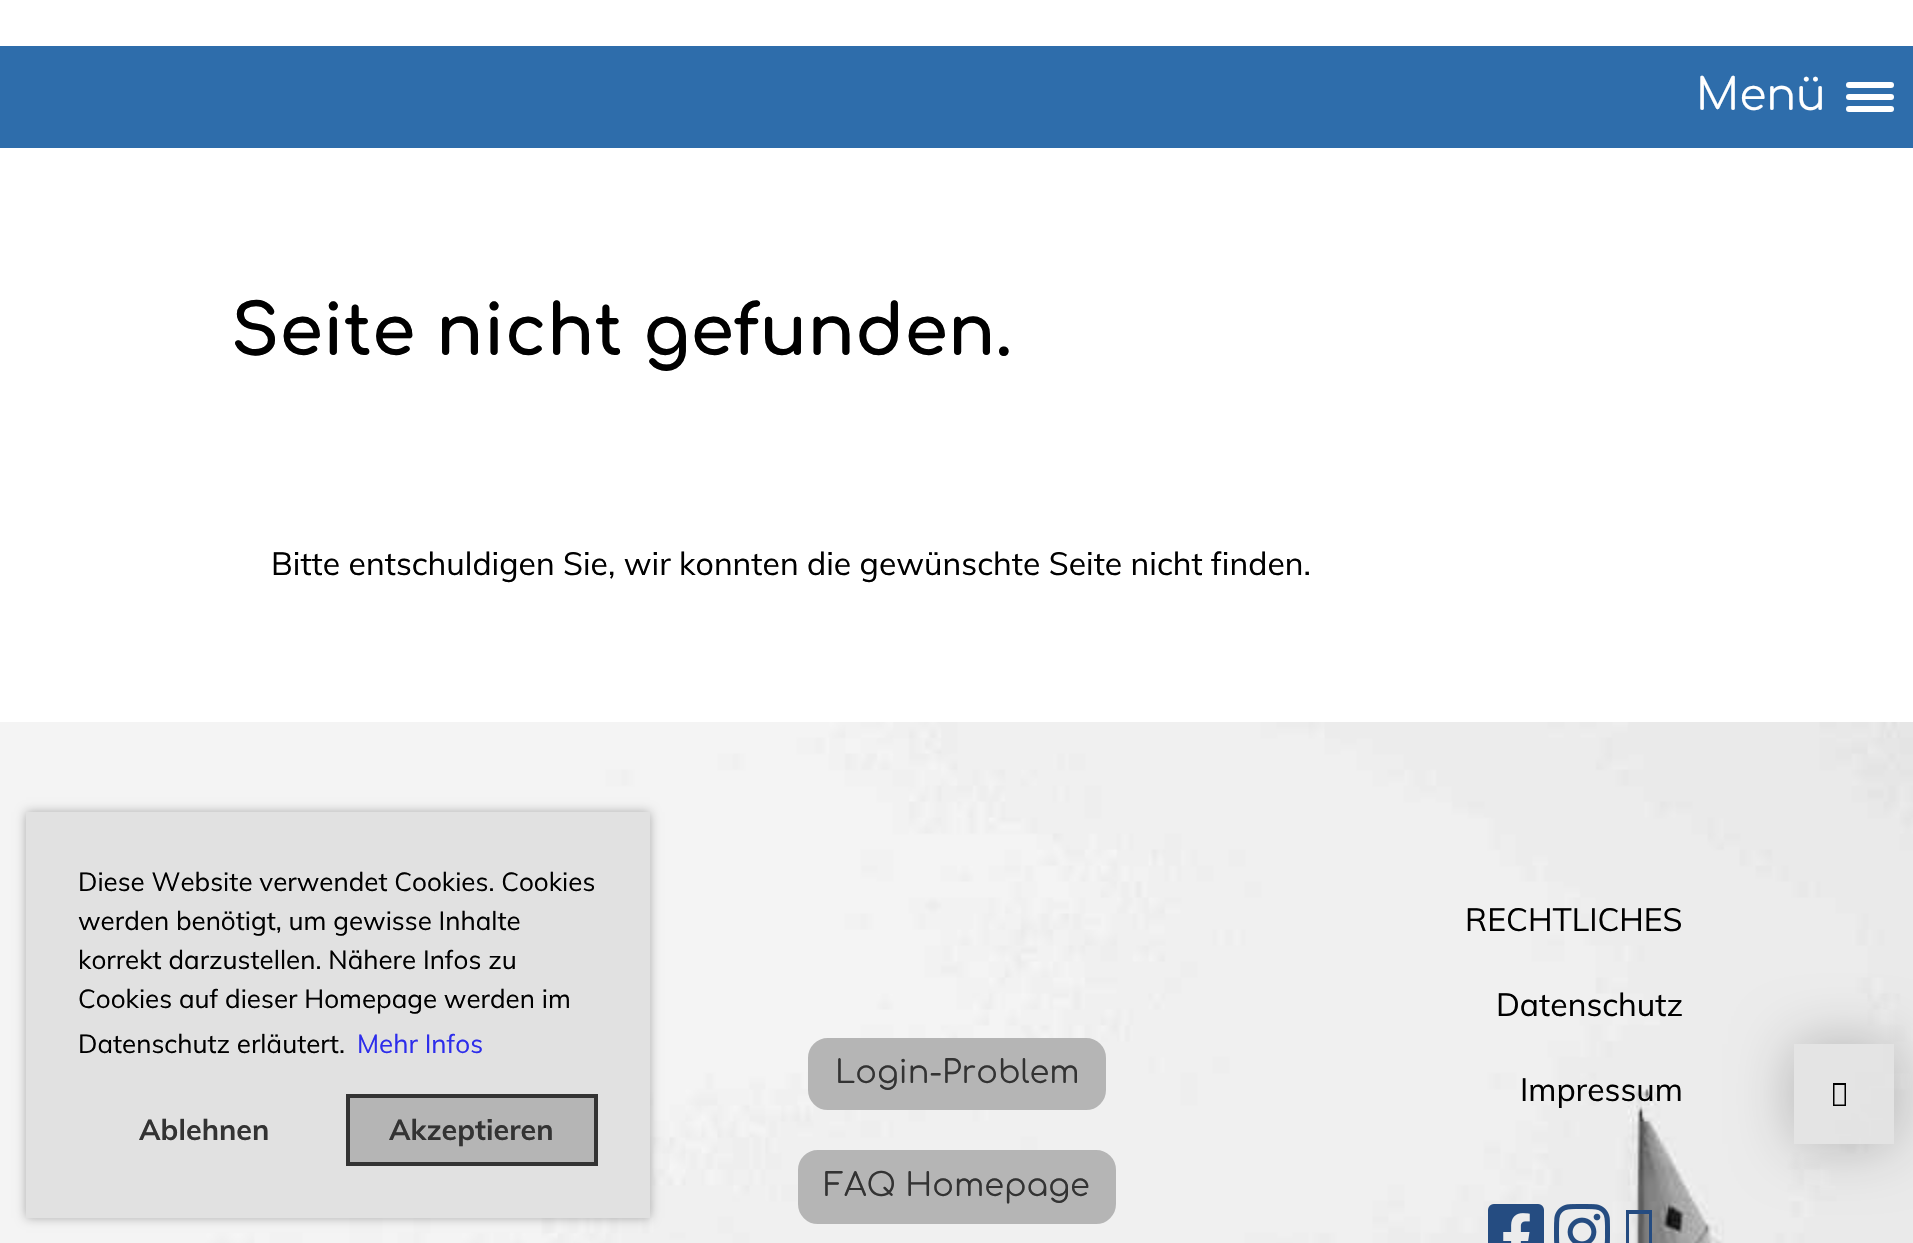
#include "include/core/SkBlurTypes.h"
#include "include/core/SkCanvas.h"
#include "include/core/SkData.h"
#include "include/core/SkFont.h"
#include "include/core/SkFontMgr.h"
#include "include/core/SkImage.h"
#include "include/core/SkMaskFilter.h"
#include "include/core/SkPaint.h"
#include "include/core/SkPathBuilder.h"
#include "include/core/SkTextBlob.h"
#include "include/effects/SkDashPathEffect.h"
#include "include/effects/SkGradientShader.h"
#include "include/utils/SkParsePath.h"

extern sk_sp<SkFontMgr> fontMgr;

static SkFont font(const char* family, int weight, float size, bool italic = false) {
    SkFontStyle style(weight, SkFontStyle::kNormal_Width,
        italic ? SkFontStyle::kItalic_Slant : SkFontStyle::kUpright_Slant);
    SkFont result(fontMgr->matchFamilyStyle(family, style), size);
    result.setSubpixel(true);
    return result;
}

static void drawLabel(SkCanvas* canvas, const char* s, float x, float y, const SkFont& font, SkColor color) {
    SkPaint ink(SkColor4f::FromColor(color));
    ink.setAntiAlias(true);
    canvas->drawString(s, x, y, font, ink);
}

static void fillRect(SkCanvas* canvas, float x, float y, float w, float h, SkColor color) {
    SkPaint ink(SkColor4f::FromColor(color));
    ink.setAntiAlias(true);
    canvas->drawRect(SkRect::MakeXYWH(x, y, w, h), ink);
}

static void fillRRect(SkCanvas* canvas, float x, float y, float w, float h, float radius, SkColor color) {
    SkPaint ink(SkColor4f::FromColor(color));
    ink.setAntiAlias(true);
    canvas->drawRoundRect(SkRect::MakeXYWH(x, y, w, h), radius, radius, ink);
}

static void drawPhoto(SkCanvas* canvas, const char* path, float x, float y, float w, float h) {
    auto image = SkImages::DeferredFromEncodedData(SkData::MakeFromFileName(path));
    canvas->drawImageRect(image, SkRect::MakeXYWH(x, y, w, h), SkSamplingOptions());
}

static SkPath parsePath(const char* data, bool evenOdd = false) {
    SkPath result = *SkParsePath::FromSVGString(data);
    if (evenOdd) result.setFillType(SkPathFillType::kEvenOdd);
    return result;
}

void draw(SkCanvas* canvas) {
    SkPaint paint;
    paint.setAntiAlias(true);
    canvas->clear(0xFFFFFFFF);
    fillRect(canvas, 0, 46, 1913, 102, 0xFF2E6DAB);
    SkFont font1 = font("Comfortaa", 400, 44);
    drawLabel(canvas, "Menü", 1696, 110, font1, 0xFFFFFFFF);
    fillRRect(canvas, 1846, 82, 48, 6, 3, 0xFFFFFFFF);
    fillRRect(canvas, 1846, 94, 48, 6, 3, 0xFFFFFFFF);
    fillRRect(canvas, 1846, 106, 48, 6, 3, 0xFFFFFFFF);
    SkFont font2 = font("Comfortaa", 700, 70);
    drawLabel(canvas, "Seite nicht gefunden.", 231, 355, font2, 0xFF000000);
    SkFont font3 = font("Muli", 400, 32);
    drawLabel(canvas, "Bitte entschuldigen Sie, wir konnten die gewünschte Seite nicht finden.", 271, 575, font3, 0xFF000000);
    drawPhoto(canvas, "assets/img1.png", 0, 722, 1913, 521);
    drawLabel(canvas, "RECHTLICHES", 1465, 931, font3, 0xFF000000);
    drawLabel(canvas, "Datenschutz", 1496, 1016, font3, 0xFF000000);
    drawLabel(canvas, "Impressum", 1520, 1101, font3, 0xFF000000);
    drawPhoto(canvas, "assets/img2.png", 1488, 1204, 56, 39);
    drawPhoto(canvas, "assets/img3.png", 1554, 1204, 56, 39);
    paint.setColor(0xFF254C81);
    canvas->drawPath(parsePath("M1626 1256V1210H1652V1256ZM1629 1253H1649V1214H1629Z"), paint);
    paint.setColor(0xFFB5B5B5);
    canvas->drawRoundRect(SkRect::MakeXYWH(809, 1039, 296, 70), 19, 19, paint);
    paint.setStroke(true);
    paint.setStrokeWidth(2);
    canvas->drawRoundRect(SkRect::MakeXYWH(809, 1039, 296, 70), 19, 19, paint);
    SkFont font4 = font("Comfortaa", 400, 32);
    drawLabel(canvas, "Login-Problem", 835, 1083, font4, 0xFF333333);
    paint.setStroke(false);
    canvas->drawRoundRect(SkRect::MakeXYWH(799, 1151, 316, 72), 19, 19, paint);
    paint.setStroke(true);
    canvas->drawRoundRect(SkRect::MakeXYWH(799, 1151, 316, 72), 19, 19, paint);
    drawLabel(canvas, "FAQ Homepage", 824, 1196, font4, 0xFF333333);
    canvas->save();
    canvas->clipPath(parsePath("M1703 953H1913V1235H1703ZM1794 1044H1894V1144H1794Z", true), true);
    paint.setStroke(false);
    paint.setColor(0x40000000);
    paint.setMaskFilter(SkMaskFilter::MakeBlur(kNormal_SkBlurStyle, 30));
    canvas->drawRect(SkRect::MakeXYWH(1794, 1044, 100, 100), paint);
    paint.setMaskFilter(nullptr);
    canvas->restore();
    fillRect(canvas, 1794, 1044, 100, 100, 0xCCE1E1E1);
    paint.setColor(0xFF000000);
    canvas->drawPath(parsePath("M1833 1106V1083H1846V1106ZM1834.5 1104.5H1844.5V1085H1834.5Z"), paint);
    paint.setColor(0x4D000000);
    paint.setMaskFilter(SkMaskFilter::MakeBlur(kNormal_SkBlurStyle, 5));
    canvas->drawRect(SkRect::MakeXYWH(26, 812, 624, 406), paint);
    paint.setMaskFilter(nullptr);
    fillRect(canvas, 26, 812, 624, 406, 0xFFE1E1E1);
    SkFont font5 = font("Muli", 400, 26);
    drawLabel(canvas, "Diese Website verwendet Cookies. Cookies", 78, 891, font5, 0xFF000000);
    drawLabel(canvas, "werden benötigt, um gewisse Inhalte", 78, 930, font5, 0xFF000000);
    drawLabel(canvas, "korrekt darzustellen. Nähere Infos zu", 78, 969, font5, 0xFF000000);
    drawLabel(canvas, "Cookies auf dieser Homepage werden im", 78, 1008, font5, 0xFF000000);
    drawLabel(canvas, "Datenschutz erläutert.", 78, 1053, font5, 0xFF000000);
    drawLabel(canvas, "Mehr Infos", 357, 1053, font5, 0xFF2D2DEB);
    SkFont font6 = font("Muli", 700, 28.75f);
    drawLabel(canvas, "Ablehnen", 139, 1140, font6, 0xFF333333);
    paint.setColor(0xFFB5B5B5);
    canvas->drawRect(SkRect::MakeXYWH(348, 1096, 248, 68), paint);
    paint.setStroke(true);
    paint.setStrokeWidth(4);
    paint.setColor(0xFF333333);
    canvas->drawRect(SkRect::MakeXYWH(348, 1096, 248, 68), paint);
    drawLabel(canvas, "Akzeptieren", 389, 1140, font6, 0xFF333333);
}
